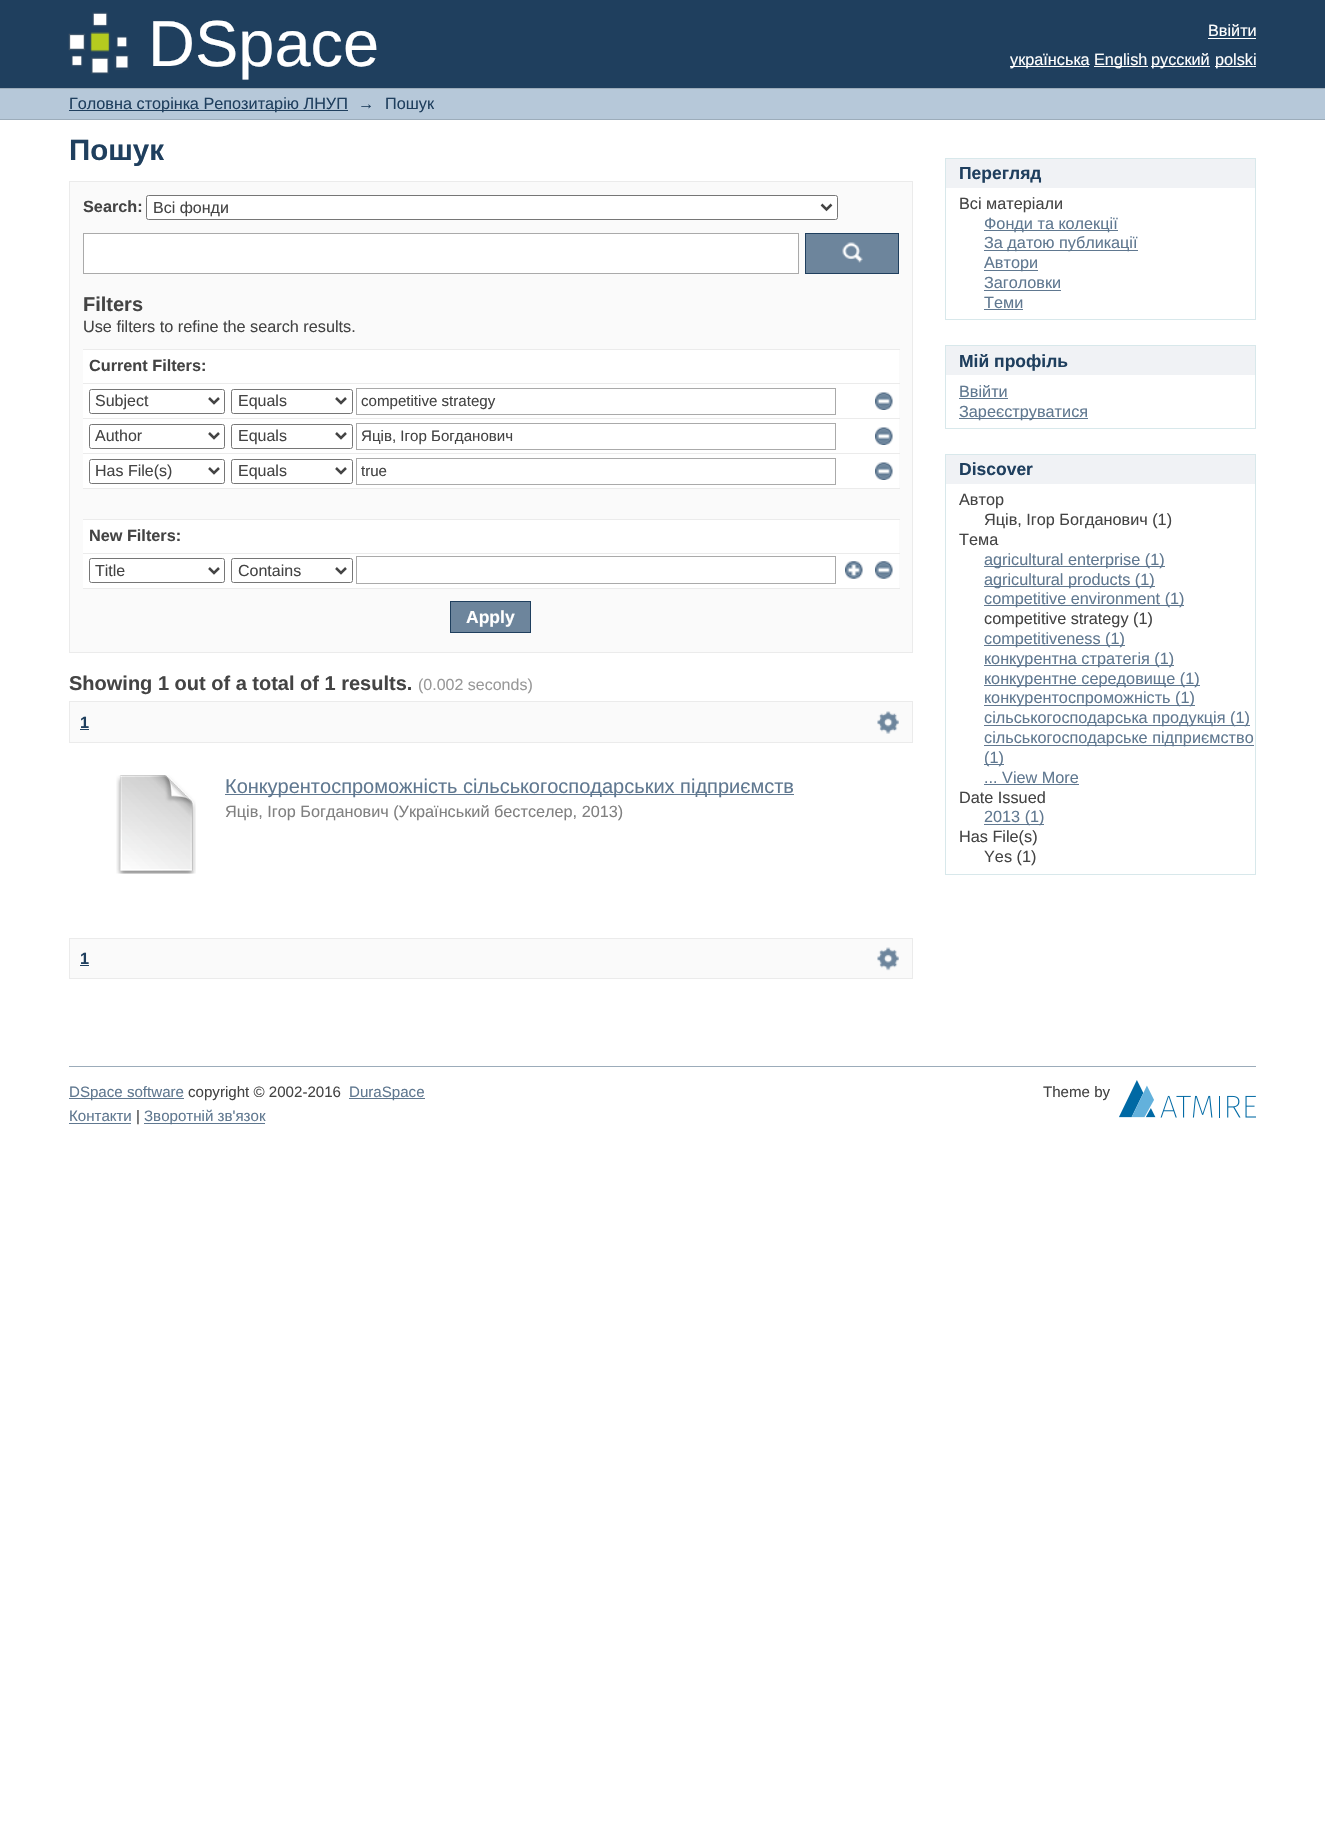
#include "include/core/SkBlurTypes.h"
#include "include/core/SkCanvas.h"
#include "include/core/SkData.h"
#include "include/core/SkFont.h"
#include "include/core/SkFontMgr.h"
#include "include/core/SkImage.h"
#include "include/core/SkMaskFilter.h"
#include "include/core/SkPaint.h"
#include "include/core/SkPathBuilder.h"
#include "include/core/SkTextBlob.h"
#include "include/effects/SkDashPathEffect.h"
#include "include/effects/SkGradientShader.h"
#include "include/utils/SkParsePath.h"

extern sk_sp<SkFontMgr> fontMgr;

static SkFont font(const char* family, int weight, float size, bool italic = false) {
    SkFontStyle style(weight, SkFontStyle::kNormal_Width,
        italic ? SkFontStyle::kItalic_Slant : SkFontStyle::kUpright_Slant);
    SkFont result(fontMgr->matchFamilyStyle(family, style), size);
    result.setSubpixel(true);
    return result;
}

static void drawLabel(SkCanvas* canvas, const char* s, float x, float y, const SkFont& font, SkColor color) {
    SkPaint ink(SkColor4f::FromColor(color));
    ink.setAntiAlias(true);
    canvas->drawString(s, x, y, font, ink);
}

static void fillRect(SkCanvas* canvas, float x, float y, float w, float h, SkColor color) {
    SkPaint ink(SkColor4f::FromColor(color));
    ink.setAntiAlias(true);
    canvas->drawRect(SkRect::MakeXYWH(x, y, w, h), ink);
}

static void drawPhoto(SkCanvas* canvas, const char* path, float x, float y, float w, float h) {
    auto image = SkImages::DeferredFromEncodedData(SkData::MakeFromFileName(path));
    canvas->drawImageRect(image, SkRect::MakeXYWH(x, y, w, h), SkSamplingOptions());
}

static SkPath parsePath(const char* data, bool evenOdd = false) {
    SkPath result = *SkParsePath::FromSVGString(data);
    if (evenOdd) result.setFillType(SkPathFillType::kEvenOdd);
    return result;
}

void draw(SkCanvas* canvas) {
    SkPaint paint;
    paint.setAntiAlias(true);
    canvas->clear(0xFFFFFFFF);
    fillRect(canvas, 0, 0, 1325, 88, 0xFF1F3F5E);
    drawPhoto(canvas, "assets/img1.png", 68, 12, 61, 62);
    SkFont font1 = font("Liberation Sans", 400, 65);
    drawLabel(canvas, "DSpace", 148, 66, font1, 0xFFFFFFFF);
    SkFont font2 = font("Liberation Sans", 400, 16.25f);
    drawLabel(canvas, "Ввійти", 1208, 36, font2, 0xFFFFFFFF);
    fillRect(canvas, 1208, 38, 48, 1, 0xFFFFFFFF);
    fillRect(canvas, 1010, 66, 79, 1, 0xFFFFFFFF);
    drawLabel(canvas, "українська", 1010, 65, font2, 0xFFFFFFFF);
    fillRect(canvas, 1094, 66, 54, 1, 0xFFFFFFFF);
    drawLabel(canvas, "English", 1094, 65, font2, 0xFFFFFFFF);
    fillRect(canvas, 1151, 66, 59, 1, 0xFFFFFFFF);
    drawLabel(canvas, "русский", 1151, 65, font2, 0xFFFFFFFF);
    fillRect(canvas, 1215, 66, 41, 1, 0xFFFFFFFF);
    drawLabel(canvas, "polski", 1215, 65, font2, 0xFFFFFFFF);
    fillRect(canvas, 0, 89, 1325, 30, 0xFFB6C8D9);
    fillRect(canvas, 0, 88, 1325, 1, 0xFF9CACBA);
    fillRect(canvas, 0, 119, 1325, 1, 0xFF9CACBA);
    fillRect(canvas, 69, 110, 279, 1, 0xFF1F3F5E);
    drawLabel(canvas, "Головна сторінка Репозитарію ЛНУП", 69, 109, font2, 0xFF1F3F5E);
    drawLabel(canvas, "→", 358, 109, font2, 0xFF1F3F5E);
    drawLabel(canvas, "Пошук", 385, 109, font2, 0xFF1F3F5E);
    SkFont font3 = font("Liberation Sans", 700, 29.5f);
    drawLabel(canvas, "Пошук", 69, 160, font3, 0xFF1F3F5E);
    paint.setColor(0xFFFAFAFA);
    canvas->drawRect(SkRect::MakeXYWH(69.5f, 181.5f, 843, 471), paint);
    paint.setStroke(true);
    paint.setStrokeWidth(1);
    paint.setColor(0xFFEBEBEB);
    canvas->drawRect(SkRect::MakeXYWH(69.5f, 181.5f, 843, 471), paint);
    SkFont font4 = font("Liberation Sans", 700, 16.25f);
    drawLabel(canvas, "Search:", 83, 212, font4, 0xFF444444);
    paint.setStroke(false);
    paint.setColor(0xFFFFFFFF);
    canvas->drawRoundRect(SkRect::MakeXYWH(146.5f, 195.5f, 691, 24), 2, 2, paint);
    paint.setStroke(true);
    paint.setColor(0xFF767676);
    canvas->drawRoundRect(SkRect::MakeXYWH(146.5f, 195.5f, 691, 24), 2, 2, paint);
    paint.setStrokeWidth(2.5f);
    paint.setColor(0xFF444444);
    canvas->drawPath(parsePath("M821.5 204.5L826.5 209.5L831.5 204.5"), paint);
    SkFont font5 = font("Liberation Sans", 400, 16);
    drawLabel(canvas, "Всі фонди", 153, 213, font5, 0xFF444444);
    paint.setStroke(false);
    paint.setColor(0xFFFFFFFF);
    canvas->drawRect(SkRect::MakeXYWH(83.5f, 233.5f, 715, 40), paint);
    paint.setStroke(true);
    paint.setStrokeWidth(1);
    paint.setColor(0xFFAAAAAA);
    canvas->drawRect(SkRect::MakeXYWH(83.5f, 233.5f, 715, 40), paint);
    fillRect(canvas, 806, 234, 92, 39, 0xFF6D859C);
    drawPhoto(canvas, "assets/img2.png", 842, 242, 21, 21);
    paint.setColor(0xFF1F3F5E);
    canvas->drawRect(SkRect::MakeXYWH(805.5f, 233.5f, 93, 40), paint);
    SkFont font6 = font("Liberation Sans", 700, 20);
    drawLabel(canvas, "Filters", 83, 311, font6, 0xFF444444);
    drawLabel(canvas, "Use filters to refine the search results.", 83, 332, font2, 0xFF444444);
    fillRect(canvas, 83, 350, 816, 238, 0xFFFFFFFF);
    fillRect(canvas, 83, 349, 817, 1, 0xFFEBEBEB);
    drawLabel(canvas, "Current Filters:", 89, 371, font4, 0xFF444444);
    fillRect(canvas, 83, 383, 817, 1, 0xFFEBEBEB);
    paint.setColor(0xFF767676);
    canvas->drawRoundRect(SkRect::MakeXYWH(89.5f, 389.5f, 135, 24), 2, 2, paint);
    paint.setStrokeWidth(2.5f);
    paint.setColor(0xFF444444);
    canvas->drawPath(parsePath("M209 398L214 403L219 398"), paint);
    drawLabel(canvas, "Subject", 95, 406, font5, 0xFF444444);
    paint.setStrokeWidth(1);
    paint.setColor(0xFF767676);
    canvas->drawRoundRect(SkRect::MakeXYWH(231.5f, 389.5f, 121, 24), 2, 2, paint);
    paint.setStrokeWidth(2.5f);
    paint.setColor(0xFF444444);
    canvas->drawPath(parsePath("M336 398L341 403L346 398"), paint);
    drawLabel(canvas, "Equals", 238, 406, font5, 0xFF444444);
    paint.setStrokeWidth(1);
    paint.setColor(0xFFAAAAAA);
    canvas->drawRect(SkRect::MakeXYWH(356.5f, 388.5f, 479, 26), paint);
    SkFont font7 = font("Liberation Sans", 400, 15.1f);
    drawLabel(canvas, "competitive strategy", 361, 406, font7, 0xFF444444);
    drawPhoto(canvas, "assets/img3.png", 875, 392, 18, 18);
    fillRect(canvas, 83, 418, 817, 1, 0xFFEBEBEB);
    paint.setColor(0xFF767676);
    canvas->drawRoundRect(SkRect::MakeXYWH(89.5f, 424.5f, 135, 24), 2, 2, paint);
    paint.setStrokeWidth(2.5f);
    paint.setColor(0xFF444444);
    canvas->drawPath(parsePath("M209 433L214 438L219 433"), paint);
    drawLabel(canvas, "Author", 95, 441, font5, 0xFF444444);
    paint.setStrokeWidth(1);
    paint.setColor(0xFF767676);
    canvas->drawRoundRect(SkRect::MakeXYWH(231.5f, 424.5f, 121, 24), 2, 2, paint);
    paint.setStrokeWidth(2.5f);
    paint.setColor(0xFF444444);
    canvas->drawPath(parsePath("M336 433L341 438L346 433"), paint);
    drawLabel(canvas, "Equals", 238, 441, font5, 0xFF444444);
    paint.setStrokeWidth(1);
    paint.setColor(0xFFAAAAAA);
    canvas->drawRect(SkRect::MakeXYWH(356.5f, 423.5f, 479, 26), paint);
    drawLabel(canvas, "Яців, Ігор Богданович", 361, 441, font7, 0xFF444444);
    drawPhoto(canvas, "assets/img3.png", 875, 427, 18, 18);
    fillRect(canvas, 83, 453, 817, 1, 0xFFEBEBEB);
    paint.setColor(0xFF767676);
    canvas->drawRoundRect(SkRect::MakeXYWH(89.5f, 459.5f, 135, 24), 2, 2, paint);
    paint.setStrokeWidth(2.5f);
    paint.setColor(0xFF444444);
    canvas->drawPath(parsePath("M209 468L214 473L219 468"), paint);
    drawLabel(canvas, "Has File(s)", 95, 476, font5, 0xFF444444);
    paint.setStrokeWidth(1);
    paint.setColor(0xFF767676);
    canvas->drawRoundRect(SkRect::MakeXYWH(231.5f, 459.5f, 121, 24), 2, 2, paint);
    paint.setStrokeWidth(2.5f);
    paint.setColor(0xFF444444);
    canvas->drawPath(parsePath("M336 468L341 473L346 468"), paint);
    drawLabel(canvas, "Equals", 238, 476, font5, 0xFF444444);
    paint.setStrokeWidth(1);
    paint.setColor(0xFFAAAAAA);
    canvas->drawRect(SkRect::MakeXYWH(356.5f, 458.5f, 479, 26), paint);
    drawLabel(canvas, "true", 361, 476, font7, 0xFF444444);
    drawPhoto(canvas, "assets/img3.png", 875, 462, 18, 18);
    fillRect(canvas, 83, 489, 816, 30, 0xFFFAFAFA);
    fillRect(canvas, 83, 488, 817, 1, 0xFFEBEBEB);
    fillRect(canvas, 83, 519, 817, 1, 0xFFEBEBEB);
    drawLabel(canvas, "New Filters:", 89, 541, font4, 0xFF444444);
    fillRect(canvas, 83, 553, 817, 1, 0xFFEBEBEB);
    paint.setColor(0xFF767676);
    canvas->drawRoundRect(SkRect::MakeXYWH(89.5f, 558.5f, 135, 24), 2, 2, paint);
    paint.setStrokeWidth(2.5f);
    paint.setColor(0xFF444444);
    canvas->drawPath(parsePath("M209 568L214 573L219 568"), paint);
    drawLabel(canvas, "Title", 95, 576, font5, 0xFF444444);
    paint.setStrokeWidth(1);
    paint.setColor(0xFF767676);
    canvas->drawRoundRect(SkRect::MakeXYWH(231.5f, 558.5f, 121, 24), 2, 2, paint);
    paint.setStrokeWidth(2.5f);
    paint.setColor(0xFF444444);
    canvas->drawPath(parsePath("M336 568L341 573L346 568"), paint);
    drawLabel(canvas, "Contains", 238, 576, font5, 0xFF444444);
    paint.setStrokeWidth(1);
    paint.setColor(0xFFAAAAAA);
    canvas->drawRect(SkRect::MakeXYWH(356.5f, 556.5f, 479, 27), paint);
    drawPhoto(canvas, "assets/img4.png", 845, 561, 18, 18);
    drawPhoto(canvas, "assets/img5.png", 875, 561, 18, 18);
    fillRect(canvas, 83, 588, 817, 1, 0xFFEBEBEB);
    paint.setStroke(false);
    paint.setColor(0xFF6D859C);
    canvas->drawRect(SkRect::MakeXYWH(450.5f, 601.5f, 80, 31), paint);
    paint.setStroke(true);
    paint.setColor(0xFF1F3F5E);
    canvas->drawRect(SkRect::MakeXYWH(450.5f, 601.5f, 80, 31), paint);
    SkFont font8 = font("Liberation Sans", 700, 17.5f);
    drawLabel(canvas, "Apply", 466, 623, font8, 0xFFFFFFFF);
    drawLabel(canvas, "Showing 1 out of a total of 1 results.", 69, 690, font6, 0xFF444444);
    drawLabel(canvas, "(0.002 seconds)", 418, 690, font5, 0xFF999999);
    paint.setStroke(false);
    paint.setColor(0xFFFAFAFA);
    canvas->drawRect(SkRect::MakeXYWH(69.5f, 701.5f, 843, 41), paint);
    paint.setStroke(true);
    paint.setColor(0xFFEBEBEB);
    canvas->drawRect(SkRect::MakeXYWH(69.5f, 701.5f, 843, 41), paint);
    drawLabel(canvas, "1", 80, 728, font4, 0xFF1F3F5E);
    fillRect(canvas, 80, 729, 9, 1, 0xFF1F3F5E);
    drawPhoto(canvas, "assets/img6.png", 877, 711, 22, 23);
    drawPhoto(canvas, "assets/img7.png", 116, 775, 80, 99);
    fillRect(canvas, 225, 794, 569, 1, 0xFF607890);
    SkFont font9 = font("Liberation Sans", 400, 20);
    drawLabel(canvas, "Конкурентоспроможність сільськогосподарських підприємств", 225, 793, font9, 0xFF607890);
    drawLabel(canvas, "Яців, Ігор Богданович (Український бестселер, 2013)", 225, 817, font2, 0xFF808080);
    paint.setStroke(false);
    paint.setColor(0xFFFAFAFA);
    canvas->drawRect(SkRect::MakeXYWH(69.5f, 938.5f, 843, 40), paint);
    paint.setStroke(true);
    paint.setColor(0xFFEBEBEB);
    canvas->drawRect(SkRect::MakeXYWH(69.5f, 938.5f, 843, 40), paint);
    drawLabel(canvas, "1", 80, 964, font4, 0xFF1F3F5E);
    fillRect(canvas, 80, 965, 9, 1, 0xFF1F3F5E);
    drawPhoto(canvas, "assets/img8.png", 877, 947, 22, 24);
    fillRect(canvas, 946, 159, 309, 29, 0xFFF0F2F5);
    fillRect(canvas, 945, 158, 311, 1, 0xFFD8E8EB);
    fillRect(canvas, 1255, 158, 1, 162, 0xFFD8E8EB);
    fillRect(canvas, 945, 158, 1, 30, 0xFFD8E8EB);
    drawLabel(canvas, "Перегляд", 959, 179, font8, 0xFF1F3F5E);
    fillRect(canvas, 945, 319, 311, 1, 0xFFD8E8EB);
    fillRect(canvas, 945, 188, 1, 132, 0xFFD8E8EB);
    drawLabel(canvas, "Всі матеріали", 959, 209, font2, 0xFF444444);
    fillRect(canvas, 984, 230, 134, 1, 0xFF607890);
    drawLabel(canvas, "Фонди та колекції", 984, 229, font2, 0xFF607890);
    fillRect(canvas, 984, 250, 154, 1, 0xFF607890);
    drawLabel(canvas, "За датою публикації", 984, 248, font2, 0xFF607890);
    fillRect(canvas, 984, 270, 54, 1, 0xFF607890);
    drawLabel(canvas, "Автори", 984, 268, font2, 0xFF607890);
    drawLabel(canvas, "Заголовки", 984, 288, font2, 0xFF607890);
    fillRect(canvas, 984, 290, 77, 1, 0xFF607890);
    drawLabel(canvas, "Теми", 984, 308, font2, 0xFF607890);
    fillRect(canvas, 984, 309, 39, 1, 0xFF607890);
    fillRect(canvas, 946, 346, 309, 29, 0xFFF0F2F5);
    fillRect(canvas, 945, 345, 311, 1, 0xFFD8E8EB);
    fillRect(canvas, 1255, 345, 1, 84, 0xFFD8E8EB);
    fillRect(canvas, 945, 345, 1, 30, 0xFFD8E8EB);
    drawLabel(canvas, "Мій профіль", 959, 367, font8, 0xFF1F3F5E);
    fillRect(canvas, 945, 428, 311, 1, 0xFFD8E8EB);
    fillRect(canvas, 945, 375, 1, 54, 0xFFD8E8EB);
    drawLabel(canvas, "Ввійти", 959, 397, font2, 0xFF607890);
    fillRect(canvas, 959, 398, 49, 1, 0xFF607890);
    fillRect(canvas, 959, 418, 129, 1, 0xFF607890);
    drawLabel(canvas, "Зареєструватися", 959, 417, font2, 0xFF607890);
    fillRect(canvas, 946, 455, 309, 29, 0xFFF0F2F5);
    fillRect(canvas, 945, 454, 311, 1, 0xFFD8E8EB);
    fillRect(canvas, 1255, 454, 1, 421, 0xFFD8E8EB);
    fillRect(canvas, 945, 454, 1, 30, 0xFFD8E8EB);
    drawLabel(canvas, "Discover", 959, 475, font8, 0xFF1F3F5E);
    fillRect(canvas, 945, 874, 311, 1, 0xFFD8E8EB);
    fillRect(canvas, 945, 484, 1, 391, 0xFFD8E8EB);
    drawLabel(canvas, "Автор", 959, 505, font2, 0xFF444444);
    drawLabel(canvas, "Яців, Ігор Богданович (1)", 984, 525, font2, 0xFF444444);
    drawLabel(canvas, "Тема", 959, 545, font2, 0xFF444444);
    fillRect(canvas, 984, 566, 181, 1, 0xFF607890);
    drawLabel(canvas, "agricultural enterprise (1)", 984, 565, font2, 0xFF607890);
    fillRect(canvas, 984, 586, 171, 1, 0xFF607890);
    drawLabel(canvas, "agricultural products (1)", 984, 585, font2, 0xFF607890);
    fillRect(canvas, 984, 605, 200, 1, 0xFF607890);
    drawLabel(canvas, "competitive environment (1)", 984, 604, font2, 0xFF607890);
    drawLabel(canvas, "competitive strategy (1)", 984, 624, font2, 0xFF444444);
    fillRect(canvas, 984, 645, 141, 1, 0xFF607890);
    drawLabel(canvas, "competitiveness (1)", 984, 644, font2, 0xFF607890);
    fillRect(canvas, 984, 665, 190, 1, 0xFF607890);
    drawLabel(canvas, "конкурентна стратегія (1)", 984, 664, font2, 0xFF607890);
    fillRect(canvas, 984, 685, 216, 1, 0xFF607890);
    drawLabel(canvas, "конкурентне середовище (1)", 984, 684, font2, 0xFF607890);
    fillRect(canvas, 984, 705, 211, 1, 0xFF607890);
    drawLabel(canvas, "конкурентоспроможність (1)", 984, 703, font2, 0xFF607890);
    fillRect(canvas, 984, 725, 266, 1, 0xFF607890);
    drawLabel(canvas, "сільськогосподарська продукція (1)", 984, 723, font2, 0xFF607890);
    fillRect(canvas, 984, 745, 270, 1, 0xFF607890);
    drawLabel(canvas, "сільськогосподарське підприємство", 984, 743, font2, 0xFF607890);
    fillRect(canvas, 984, 764, 20, 1, 0xFF607890);
    drawLabel(canvas, "(1)", 984, 763, font2, 0xFF607890);
    drawLabel(canvas, "... View More", 984, 783, font2, 0xFF607890);
    fillRect(canvas, 984, 784, 95, 1, 0xFF607890);
    drawLabel(canvas, "Date Issued", 959, 803, font2, 0xFF444444);
    fillRect(canvas, 984, 824, 60, 1, 0xFF607890);
    drawLabel(canvas, "2013 (1)", 984, 822, font2, 0xFF607890);
    drawLabel(canvas, "Has File(s)", 959, 842, font2, 0xFF444444);
    drawLabel(canvas, "Yes (1)", 984, 862, font2, 0xFF444444);
    fillRect(canvas, 69, 1066, 1187, 1, 0xFF9CACBA);
    fillRect(canvas, 69, 1098, 115, 1, 0xFF607890);
    drawLabel(canvas, "DSpace software", 69, 1097, font7, 0xFF607890);
    drawLabel(canvas, "copyright © 2002-2016", 188, 1097, font7, 0xFF444444);
    fillRect(canvas, 349, 1098, 76, 1, 0xFF607890);
    drawLabel(canvas, "DuraSpace", 349, 1097, font7, 0xFF607890);
    drawLabel(canvas, "Theme by", 1043, 1097, font7, 0xFF444444);
    drawPhoto(canvas, "assets/img9.png", 1119, 1080, 137, 38);
    drawLabel(canvas, "Контакти", 69, 1121, font7, 0xFF607890);
    fillRect(canvas, 69, 1123, 62, 1, 0xFF607890);
    drawLabel(canvas, "|", 136, 1121, font7, 0xFF444444);
    fillRect(canvas, 144, 1123, 121, 1, 0xFF607890);
    drawLabel(canvas, "Зворотній зв'язок", 144, 1121, font7, 0xFF607890);
}
